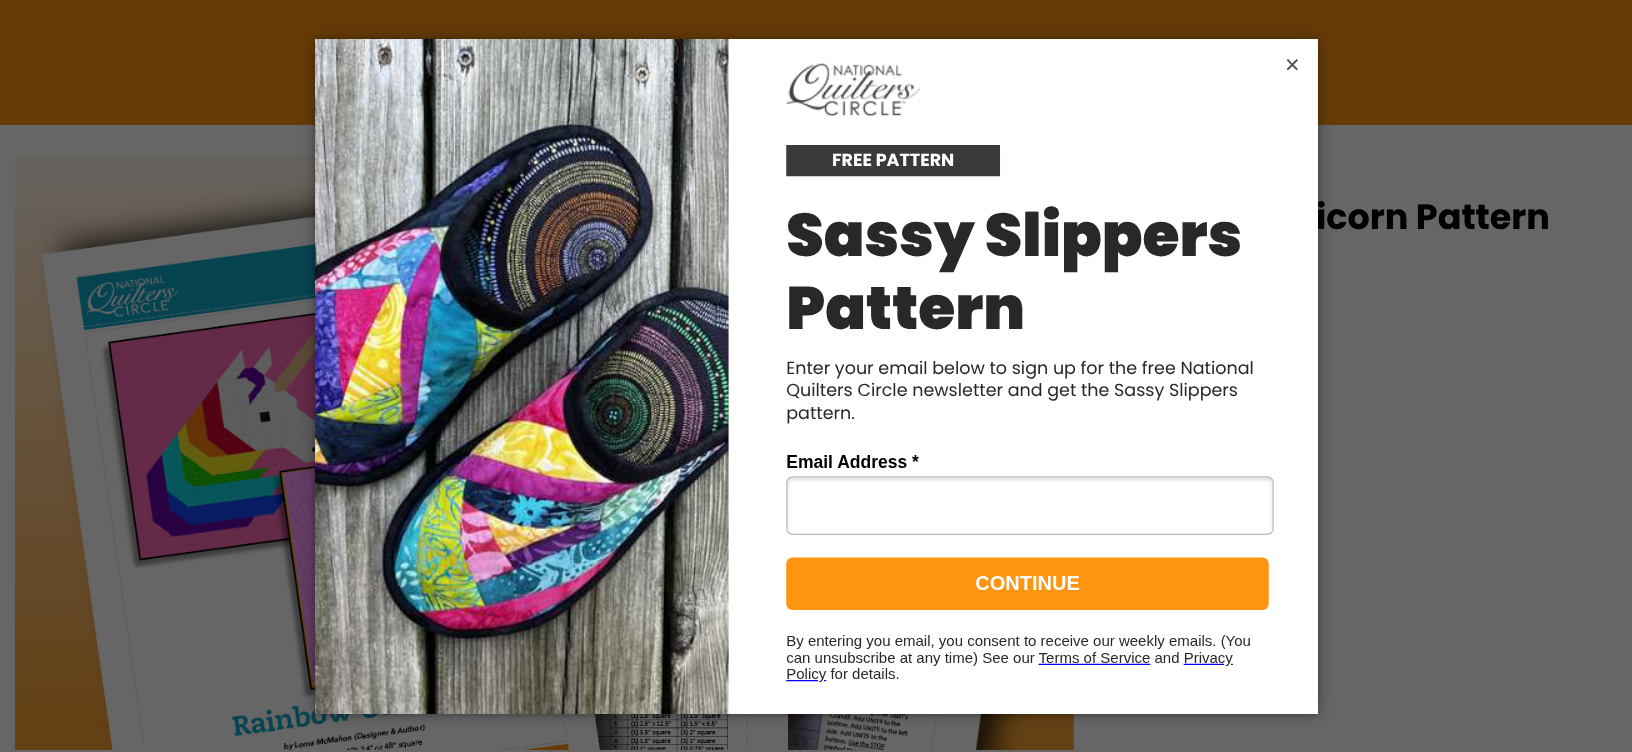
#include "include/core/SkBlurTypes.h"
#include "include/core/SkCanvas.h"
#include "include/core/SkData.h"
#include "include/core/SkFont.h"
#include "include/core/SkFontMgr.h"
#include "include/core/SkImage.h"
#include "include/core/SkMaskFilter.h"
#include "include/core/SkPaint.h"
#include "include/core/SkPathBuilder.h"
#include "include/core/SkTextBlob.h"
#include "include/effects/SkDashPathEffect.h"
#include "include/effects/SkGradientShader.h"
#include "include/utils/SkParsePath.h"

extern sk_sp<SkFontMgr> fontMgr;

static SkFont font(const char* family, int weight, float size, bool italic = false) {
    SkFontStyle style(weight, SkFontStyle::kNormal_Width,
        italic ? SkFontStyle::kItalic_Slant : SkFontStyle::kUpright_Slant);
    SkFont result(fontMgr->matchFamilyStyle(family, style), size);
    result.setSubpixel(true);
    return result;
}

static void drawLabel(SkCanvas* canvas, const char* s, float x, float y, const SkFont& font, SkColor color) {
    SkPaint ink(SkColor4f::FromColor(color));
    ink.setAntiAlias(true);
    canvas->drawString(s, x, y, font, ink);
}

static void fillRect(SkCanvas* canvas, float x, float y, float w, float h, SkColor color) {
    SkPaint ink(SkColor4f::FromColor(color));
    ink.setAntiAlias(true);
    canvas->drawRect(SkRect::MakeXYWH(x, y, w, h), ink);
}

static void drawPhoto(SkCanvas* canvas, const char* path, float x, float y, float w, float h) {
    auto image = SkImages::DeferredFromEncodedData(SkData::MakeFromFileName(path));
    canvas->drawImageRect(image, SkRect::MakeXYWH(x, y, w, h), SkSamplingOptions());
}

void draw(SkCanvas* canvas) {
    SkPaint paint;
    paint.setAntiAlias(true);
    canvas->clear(0xFF666666);
    fillRect(canvas, 0, 0, 1632, 125, 0xFF663B07);
    drawPhoto(canvas, "assets/img2.png", 15, 155, 1059, 595);
    paint.setColor(0x4D000000);
    paint.setMaskFilter(SkMaskFilter::MakeBlur(kNormal_SkBlurStyle, 7.5f));
    canvas->drawRect(SkRect::MakeXYWH(315, 39, 1003, 675), paint);
    paint.setMaskFilter(nullptr);
    paint.setColor(0x33000000);
    paint.setMaskFilter(SkMaskFilter::MakeBlur(kNormal_SkBlurStyle, 3));
    canvas->drawRect(SkRect::MakeXYWH(315, 40, 1003, 675), paint);
    paint.setMaskFilter(nullptr);
    SkFont font1 = font("Poppins", 700, 35);
    drawLabel(canvas, "icorn Pattern", 1316, 229, font1, 0xFF000000);
    drawPhoto(canvas, "assets/img1.png", 315, 39, 1003, 675);
    SkFont font2 = font("Liberation Sans", 400, 25);
    drawLabel(canvas, "×", 1285, 73, font2, 0xFF525151);
}
